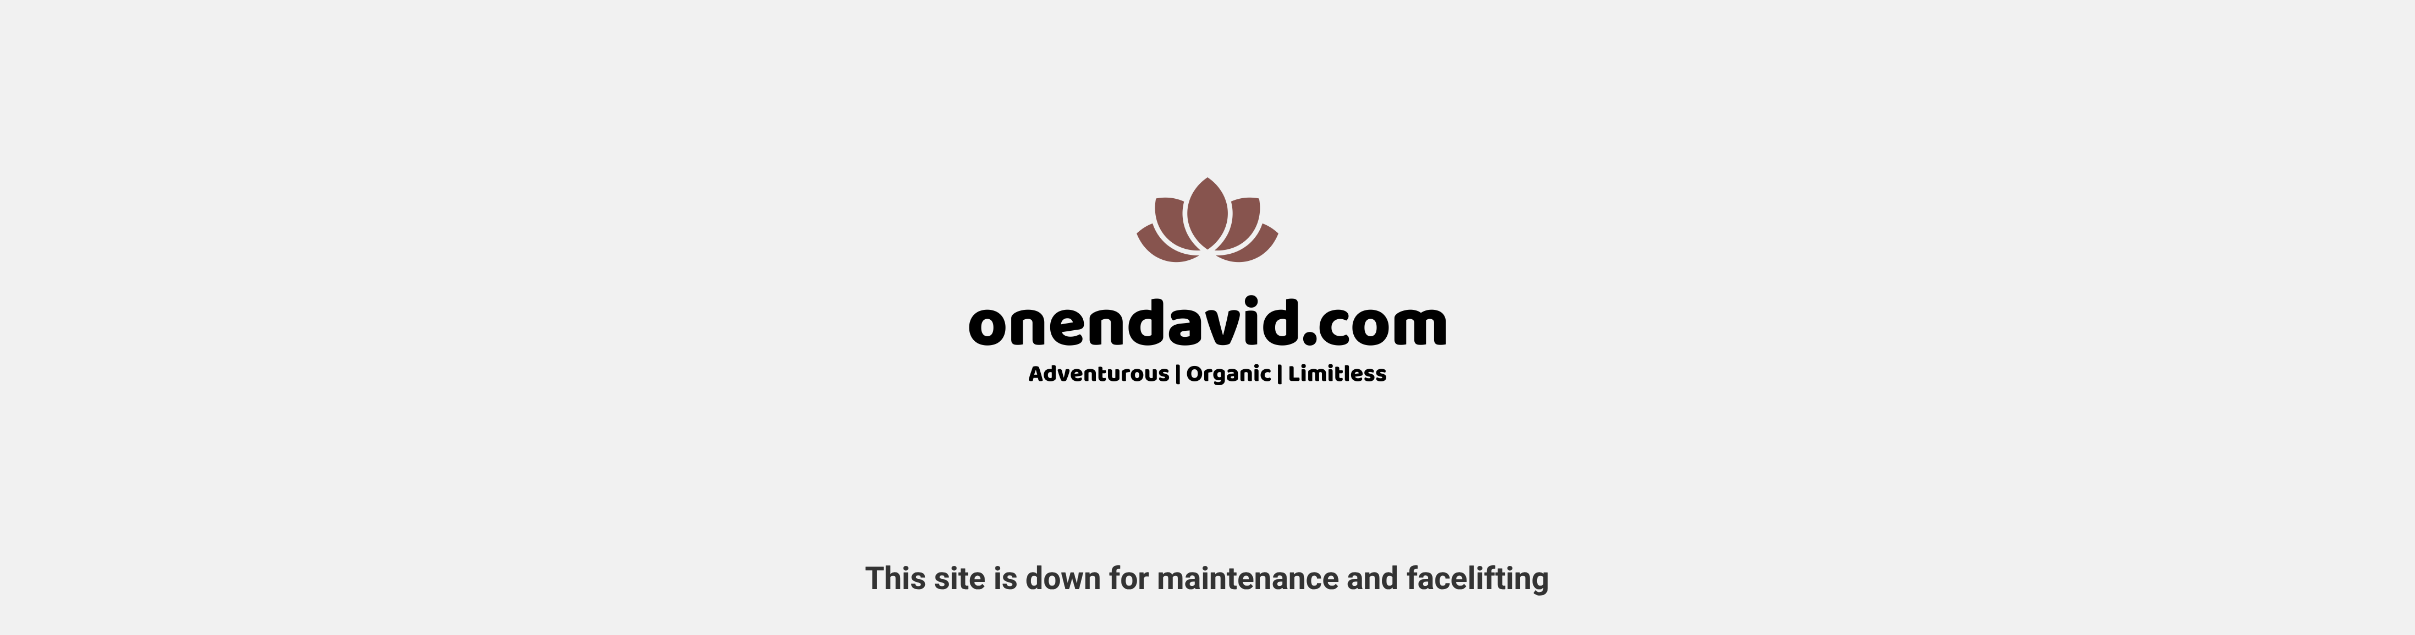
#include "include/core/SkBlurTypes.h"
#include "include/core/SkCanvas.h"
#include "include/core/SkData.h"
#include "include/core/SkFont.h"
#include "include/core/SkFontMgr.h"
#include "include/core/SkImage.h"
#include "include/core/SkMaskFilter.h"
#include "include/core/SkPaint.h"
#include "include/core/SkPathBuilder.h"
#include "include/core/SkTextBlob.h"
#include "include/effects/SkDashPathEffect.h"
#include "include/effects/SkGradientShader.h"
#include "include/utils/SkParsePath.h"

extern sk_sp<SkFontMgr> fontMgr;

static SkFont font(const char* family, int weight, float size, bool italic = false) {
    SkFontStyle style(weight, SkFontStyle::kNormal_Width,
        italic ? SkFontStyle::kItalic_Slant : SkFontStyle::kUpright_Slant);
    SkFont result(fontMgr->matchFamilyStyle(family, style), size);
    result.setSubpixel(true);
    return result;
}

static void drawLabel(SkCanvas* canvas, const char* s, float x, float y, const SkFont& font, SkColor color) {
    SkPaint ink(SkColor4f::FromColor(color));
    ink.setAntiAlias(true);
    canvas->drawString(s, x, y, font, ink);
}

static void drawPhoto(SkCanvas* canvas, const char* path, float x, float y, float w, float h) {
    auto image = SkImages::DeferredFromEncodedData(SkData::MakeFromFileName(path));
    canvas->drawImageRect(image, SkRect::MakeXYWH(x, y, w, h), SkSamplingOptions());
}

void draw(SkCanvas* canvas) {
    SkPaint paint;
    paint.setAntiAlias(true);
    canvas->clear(0xFFF1F1F1);
    drawPhoto(canvas, "assets/img1.png", 969, 177, 477, 208);
    SkFont font1 = font("Roboto", 700, 31.25f);
    drawLabel(canvas, "This site is down for maintenance and facelifting", 865, 589, font1, 0xFF333333);
}
